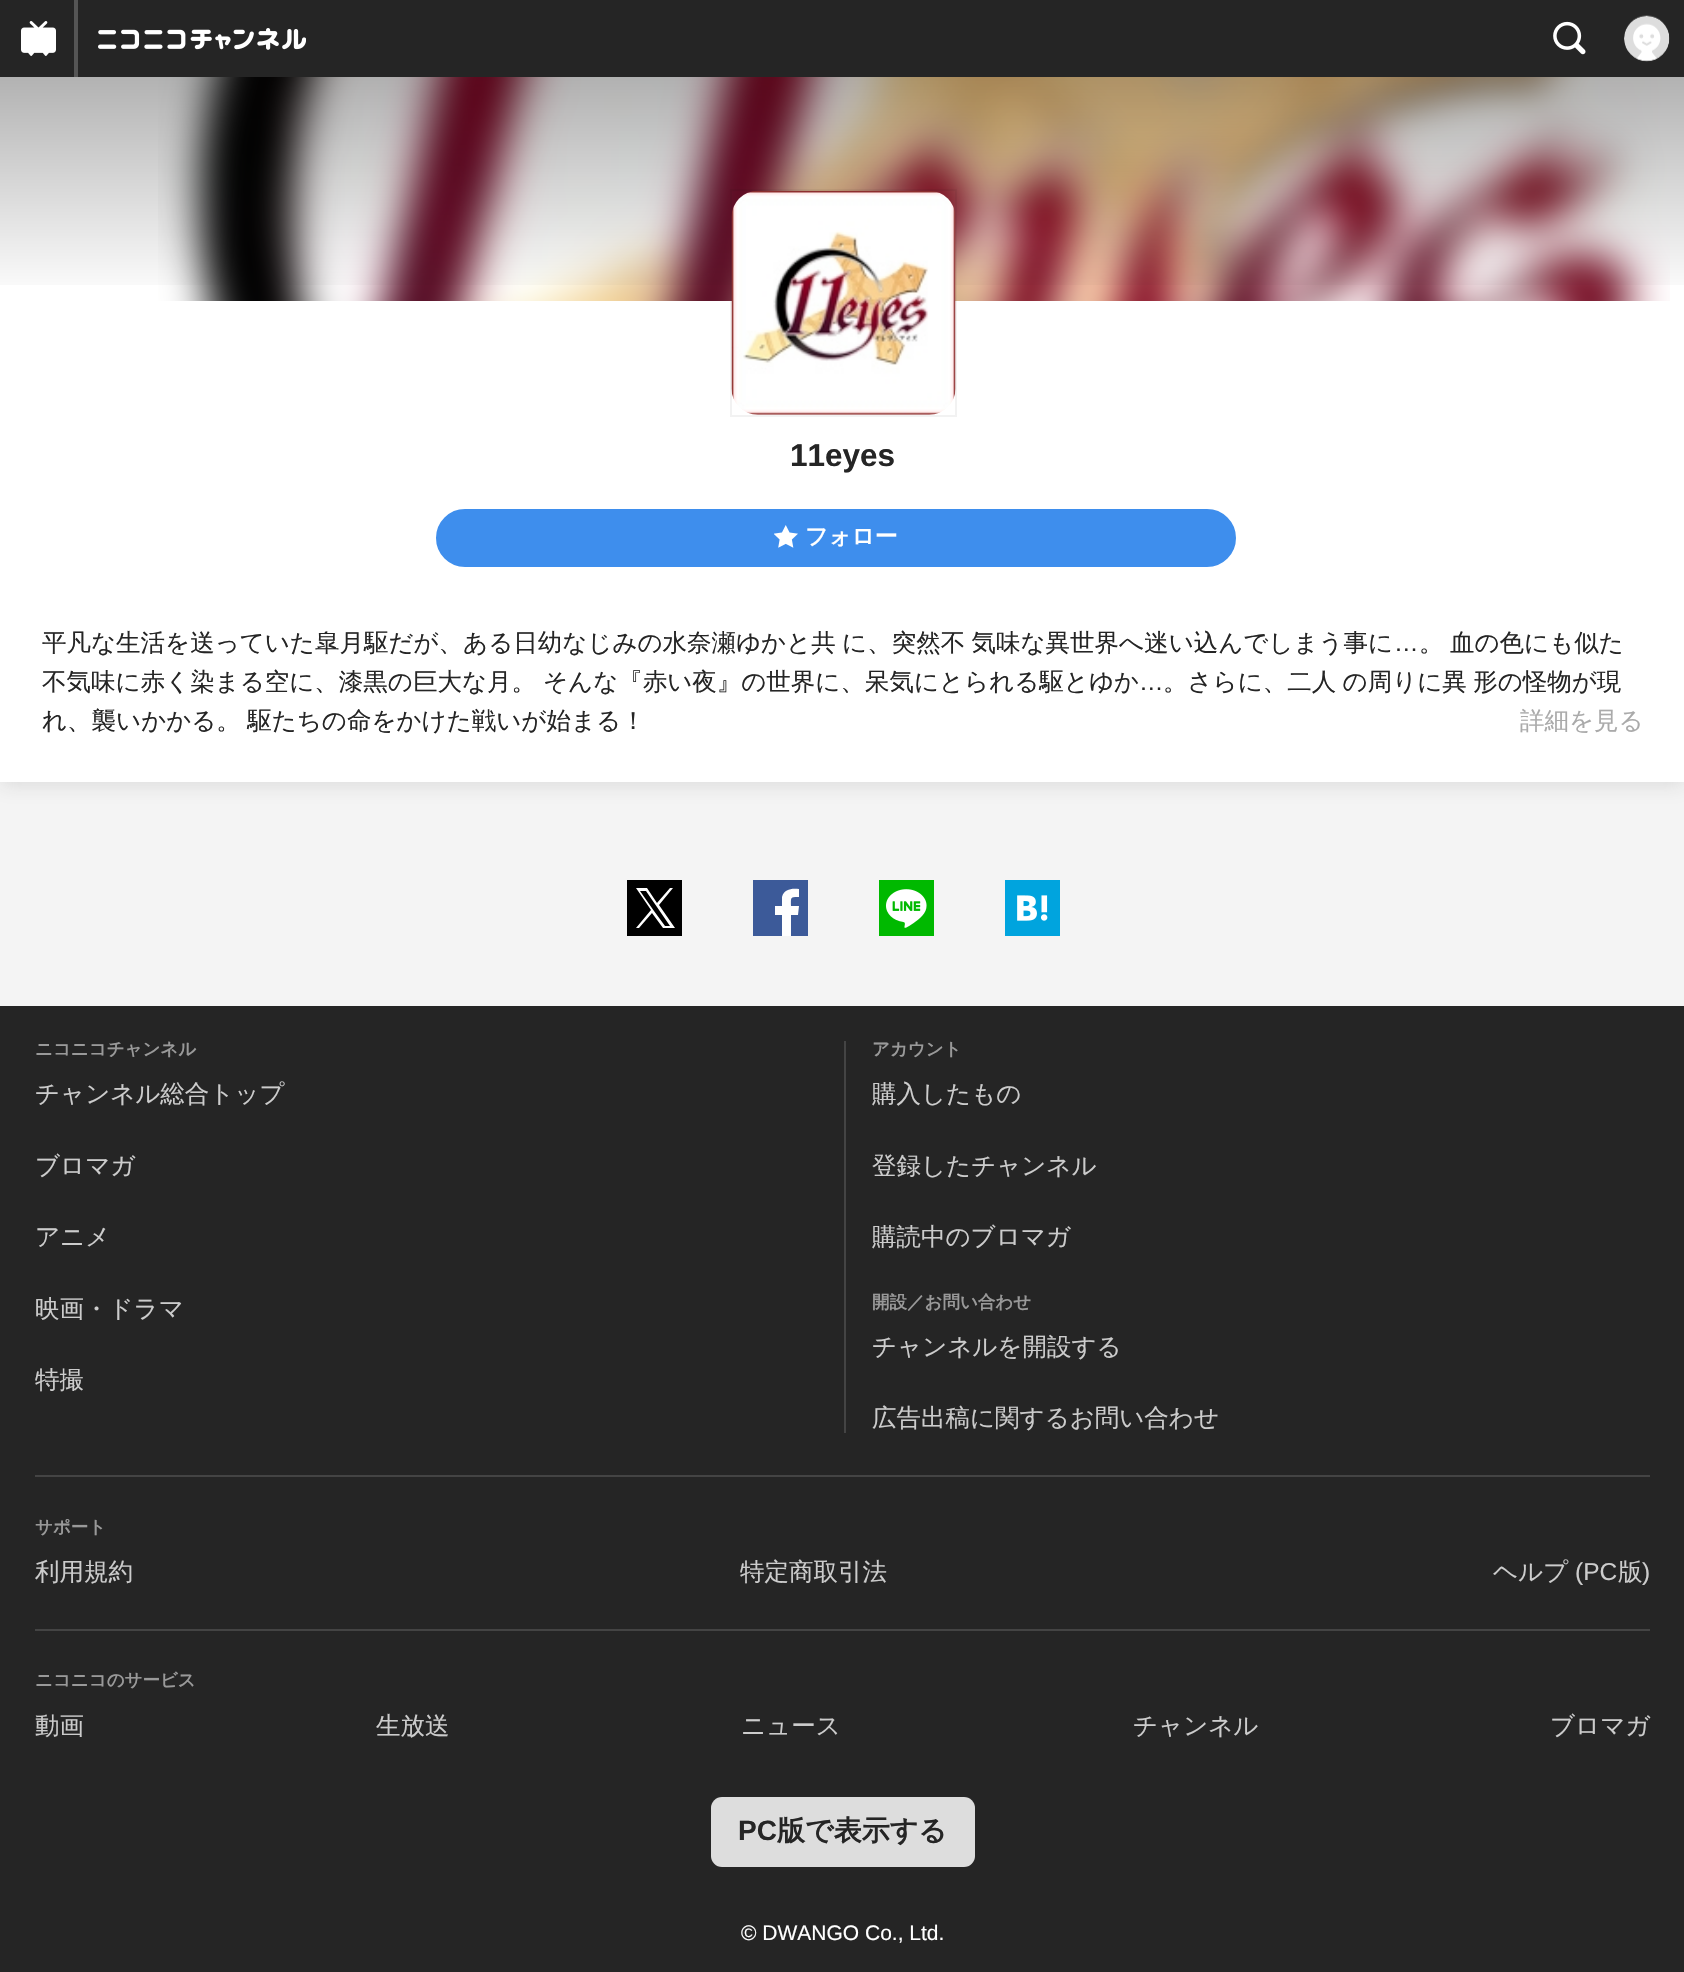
#include "include/core/SkBlurTypes.h"
#include "include/core/SkCanvas.h"
#include "include/core/SkData.h"
#include "include/core/SkFont.h"
#include "include/core/SkFontMgr.h"
#include "include/core/SkImage.h"
#include "include/core/SkMaskFilter.h"
#include "include/core/SkPaint.h"
#include "include/core/SkPathBuilder.h"
#include "include/core/SkTextBlob.h"
#include "include/effects/SkDashPathEffect.h"
#include "include/effects/SkGradientShader.h"
#include "include/utils/SkParsePath.h"

extern sk_sp<SkFontMgr> fontMgr;

static SkFont font(const char* family, int weight, float size, bool italic = false) {
    SkFontStyle style(weight, SkFontStyle::kNormal_Width,
        italic ? SkFontStyle::kItalic_Slant : SkFontStyle::kUpright_Slant);
    SkFont result(fontMgr->matchFamilyStyle(family, style), size);
    result.setSubpixel(true);
    return result;
}

static void drawLabel(SkCanvas* canvas, const char* s, float x, float y, const SkFont& font, SkColor color) {
    SkPaint ink(SkColor4f::FromColor(color));
    ink.setAntiAlias(true);
    canvas->drawString(s, x, y, font, ink);
}

static void drawTracked(SkCanvas* canvas, const char* s, float x, float y, const SkFont& font, const SkPaint& ink, float letter, float word) {
    std::vector<SkGlyphID> glyphs(font.countText(s, strlen(s), SkTextEncoding::kUTF8));
    std::vector<float> xs(glyphs.size());
    font.textToGlyphs(s, strlen(s), SkTextEncoding::kUTF8, glyphs);
    font.getXPos(glyphs, xs, x);
    float extra = 0;
    for (size_t i = 0; i < glyphs.size(); i++) {
        xs[i] += extra;
        extra += letter + word * (glyphs[i] == font.unicharToGlyph(' '));
    }
    canvas->drawTextBlob(SkTextBlob::MakeFromPosHGlyphs(glyphs, xs, y, font), 0, 0, ink);
}

static void fillRect(SkCanvas* canvas, float x, float y, float w, float h, SkColor color) {
    SkPaint ink(SkColor4f::FromColor(color));
    ink.setAntiAlias(true);
    canvas->drawRect(SkRect::MakeXYWH(x, y, w, h), ink);
}

static void fillRRect(SkCanvas* canvas, float x, float y, float w, float h, float radius, SkColor color) {
    SkPaint ink(SkColor4f::FromColor(color));
    ink.setAntiAlias(true);
    canvas->drawRoundRect(SkRect::MakeXYWH(x, y, w, h), radius, radius, ink);
}

static void drawPhoto(SkCanvas* canvas, const char* path, float x, float y, float w, float h) {
    auto image = SkImages::DeferredFromEncodedData(SkData::MakeFromFileName(path));
    canvas->drawImageRect(image, SkRect::MakeXYWH(x, y, w, h), SkSamplingOptions());
}

static SkPath parsePath(const char* data, bool evenOdd = false) {
    SkPath result = *SkParsePath::FromSVGString(data);
    if (evenOdd) result.setFillType(SkPathFillType::kEvenOdd);
    return result;
}

void draw(SkCanvas* canvas) {
    SkPaint paint;
    paint.setAntiAlias(true);
    canvas->clear(0xFFF4F4F4);
    paint.setColor(0x337D7D7D);
    paint.setMaskFilter(SkMaskFilter::MakeBlur(kNormal_SkBlurStyle, 9));
    canvas->drawRect(SkRect::MakeXYWH(0, 81, 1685, 705), paint);
    paint.setMaskFilter(nullptr);
    fillRect(canvas, 0, 0, 1684, 77, 0xFF252525);
    drawPhoto(canvas, "assets/img1.png", 21, 21, 35, 35);
    fillRect(canvas, 74, 0, 4, 77, 0xFF555555);
    drawPhoto(canvas, "assets/img2.png", 98, 28, 208, 22);
    drawPhoto(canvas, "assets/img3.png", 1553, 21, 33, 34);
    drawPhoto(canvas, "assets/img4.png", 1624, 15, 46, 47);
    fillRect(canvas, 0, 77, 1684, 705, 0xFFFFFFFF);
    drawPhoto(canvas, "assets/img5.png", 158, 77, 1512, 224);
    {
        const SkColor colors[] = {0x4D000000, 0x00000000};
        const float stops[] = {0, 1};
        const SkPoint ends[] = {{843, 77}, {843, 301}};
        paint.setShader(SkGradientShader::MakeLinear(ends, colors, stops, 2, SkTileMode::kClamp));
        paint.setAlpha(255);
    }
    canvas->drawRect(SkRect::MakeXYWH(0, 77, 1684, 208), paint);
    paint.setStroke(true);
    paint.setStrokeWidth(2);
    paint.setShader(nullptr);
    paint.setColor(0x0D000000);
    canvas->drawRect(SkRect::MakeXYWH(731, 190, 225, 226), paint);
    drawPhoto(canvas, "assets/img6.png", 731, 190, 225, 225);
    SkFont font1 = font("Liberation Sans", 700, 31.5f);
    drawLabel(canvas, "11eyes", 790, 466, font1, 0xFF252525);
    paint.setStroke(false);
    paint.setColor(0xFF3E8EED);
    canvas->drawRoundRect(SkRect::MakeXYWH(438, 511, 796, 54), 27, 27, paint);
    paint.setStroke(true);
    paint.setStrokeWidth(4);
    canvas->drawRoundRect(SkRect::MakeXYWH(438, 511, 796, 54), 27, 27, paint);
    drawPhoto(canvas, "assets/img7.png", 774, 525, 24, 23);
    SkFont font2 = font("WenQuanYi Zen Hei", 700, 22.75f);
    drawLabel(canvas, "フォロー", 805, 544, font2, 0xFFFFFFFF);
    SkFont font3 = font("WenQuanYi Zen Hei", 500, 24.5f);
    paint.setStroke(false);
    paint.setColor(0xFF252525);
    drawTracked(canvas, "平凡な生活を送っていた皐月駆だが、ある日幼なじみの水奈瀬ゆかと共 に、突然不 気味な異世界へ迷い込んでしまう事に", 42, 651, font3, paint, 0, -1);
    SkFont font4 = font("Liberation Sans", 400, 24.5f);
    drawLabel(canvas, "…", 1394, 651, font4, 0xFF252525);
    drawLabel(canvas, "。", 1419, 651, font3, 0xFF252525);
    drawLabel(canvas, "血の色にも似た", 1450, 651, font3, 0xFF252525);
    drawLabel(canvas, "不気味に赤く染まる空に、漆黒の巨大な月。", 42, 690, font3, 0xFF252525);
    drawLabel(canvas, "そんな『赤い夜』の世界に、呆気にとられる駆とゆか", 543, 690, font3, 0xFF252525);
    drawLabel(canvas, "…", 1139, 690, font4, 0xFF252525);
    drawTracked(canvas, "。さらに、二人 の周りに異 形の怪物が現", 1163, 690, font3, paint, 0, -1);
    drawTracked(canvas, "れ、襲いかかる。 駆たちの命をかけた戦いが始まる！", 42, 729, font3, paint, 0, -1);
    drawLabel(canvas, "詳細を見る", 1520, 729, font3, 0xFFAAAAAA);
    fillRect(canvas, 627, 880, 55, 56, 0xFF000000);
    paint.setColor(0xFFFFFFFF);
    canvas->drawPath(parsePath("M659 905L673 888H670L657 903L647 888H636L651 910L636 928H639L652 913L663 928H675ZM654 911L640 891H646L670 926H665Z"), paint);
    fillRect(canvas, 753, 880, 55, 56, 0xFF3C5A99);
    paint.setColor(0xFFFEFEFE);
    canvas->drawPath(parsePath("M791 936V915H798L799 906H791C791 897 790 897 799 897V889C792 888 784 889 782 897V906H775V915H782V936Z", true), paint);
    drawPhoto(canvas, "assets/img8.png", 879, 880, 55, 56);
    drawPhoto(canvas, "assets/img9.png", 1005, 880, 55, 56);
    fillRect(canvas, 0, 1006, 1684, 966, 0xFF252525);
    SkFont font5 = font("WenQuanYi Zen Hei", 700, 17.5f);
    drawLabel(canvas, "ニコニコチャンネル", 35, 1055, font5, 0xFF999999);
    drawLabel(canvas, "チャンネル総合トップ", 35, 1102, font3, 0xFFCCCCCC);
    drawLabel(canvas, "ブロマガ", 35, 1174, font3, 0xFFCCCCCC);
    drawLabel(canvas, "アニメ", 35, 1245, font3, 0xFFCCCCCC);
    drawLabel(canvas, "映画・ドラマ", 35, 1317, font3, 0xFFCCCCCC);
    drawLabel(canvas, "特撮", 35, 1388, font3, 0xFFCCCCCC);
    fillRect(canvas, 844, 1041, 2, 392, 0xFF444444);
    drawLabel(canvas, "アカウント", 872, 1055, font5, 0xFF999999);
    drawLabel(canvas, "購入したもの", 872, 1102, font3, 0xFFCCCCCC);
    drawLabel(canvas, "登録したチャンネル", 872, 1174, font3, 0xFFCCCCCC);
    drawLabel(canvas, "購読中のブロマガ", 872, 1245, font3, 0xFFCCCCCC);
    drawLabel(canvas, "開設／お問い合わせ", 872, 1308, font5, 0xFF999999);
    drawLabel(canvas, "チャンネルを開設する", 872, 1355, font3, 0xFFCCCCCC);
    drawLabel(canvas, "広告出稿に関するお問い合わせ", 872, 1426, font3, 0xFFCCCCCC);
    fillRect(canvas, 35, 1475, 1615, 2, 0xFF444444);
    drawLabel(canvas, "サポート", 35, 1533, font5, 0xFF999999);
    drawLabel(canvas, "利用規約", 35, 1580, font3, 0xFFCCCCCC);
    drawLabel(canvas, "特定商取引法", 740, 1580, font3, 0xFFCCCCCC);
    drawLabel(canvas, "ヘルプ", 1493, 1580, font3, 0xFFCCCCCC);
    drawLabel(canvas, "(PC", 1575, 1580, font4, 0xFFCCCCCC);
    drawLabel(canvas, "版", 1618, 1580, font3, 0xFFCCCCCC);
    drawLabel(canvas, ")", 1642, 1580, font4, 0xFFCCCCCC);
    fillRect(canvas, 35, 1629, 1615, 2, 0xFF444444);
    drawLabel(canvas, "ニコニコのサービス", 35, 1686, font5, 0xFF999999);
    drawLabel(canvas, "動画", 35, 1734, font3, 0xFFCCCCCC);
    drawLabel(canvas, "生放送", 376, 1734, font3, 0xFFCCCCCC);
    drawLabel(canvas, "ニュース", 741, 1734, font3, 0xFFCCCCCC);
    drawLabel(canvas, "チャンネル", 1133, 1734, font3, 0xFFCCCCCC);
    drawLabel(canvas, "ブロマガ", 1550, 1734, font3, 0xFFCCCCCC);
    fillRRect(canvas, 711, 1797, 264, 70, 11, 0xFFDDDDDD);
    SkFont font6 = font("Liberation Sans", 700, 28);
    drawLabel(canvas, "PC", 738, 1840, font6, 0xFF252525);
    SkFont font7 = font("WenQuanYi Zen Hei", 700, 28);
    drawLabel(canvas, "版で表示する", 777, 1840, font7, 0xFF252525);
    SkFont font8 = font("Liberation Sans", 400, 21);
    drawLabel(canvas, "© DWANGO Co., Ltd.", 741, 1940, font8, 0xFFFFFFFF);
}
